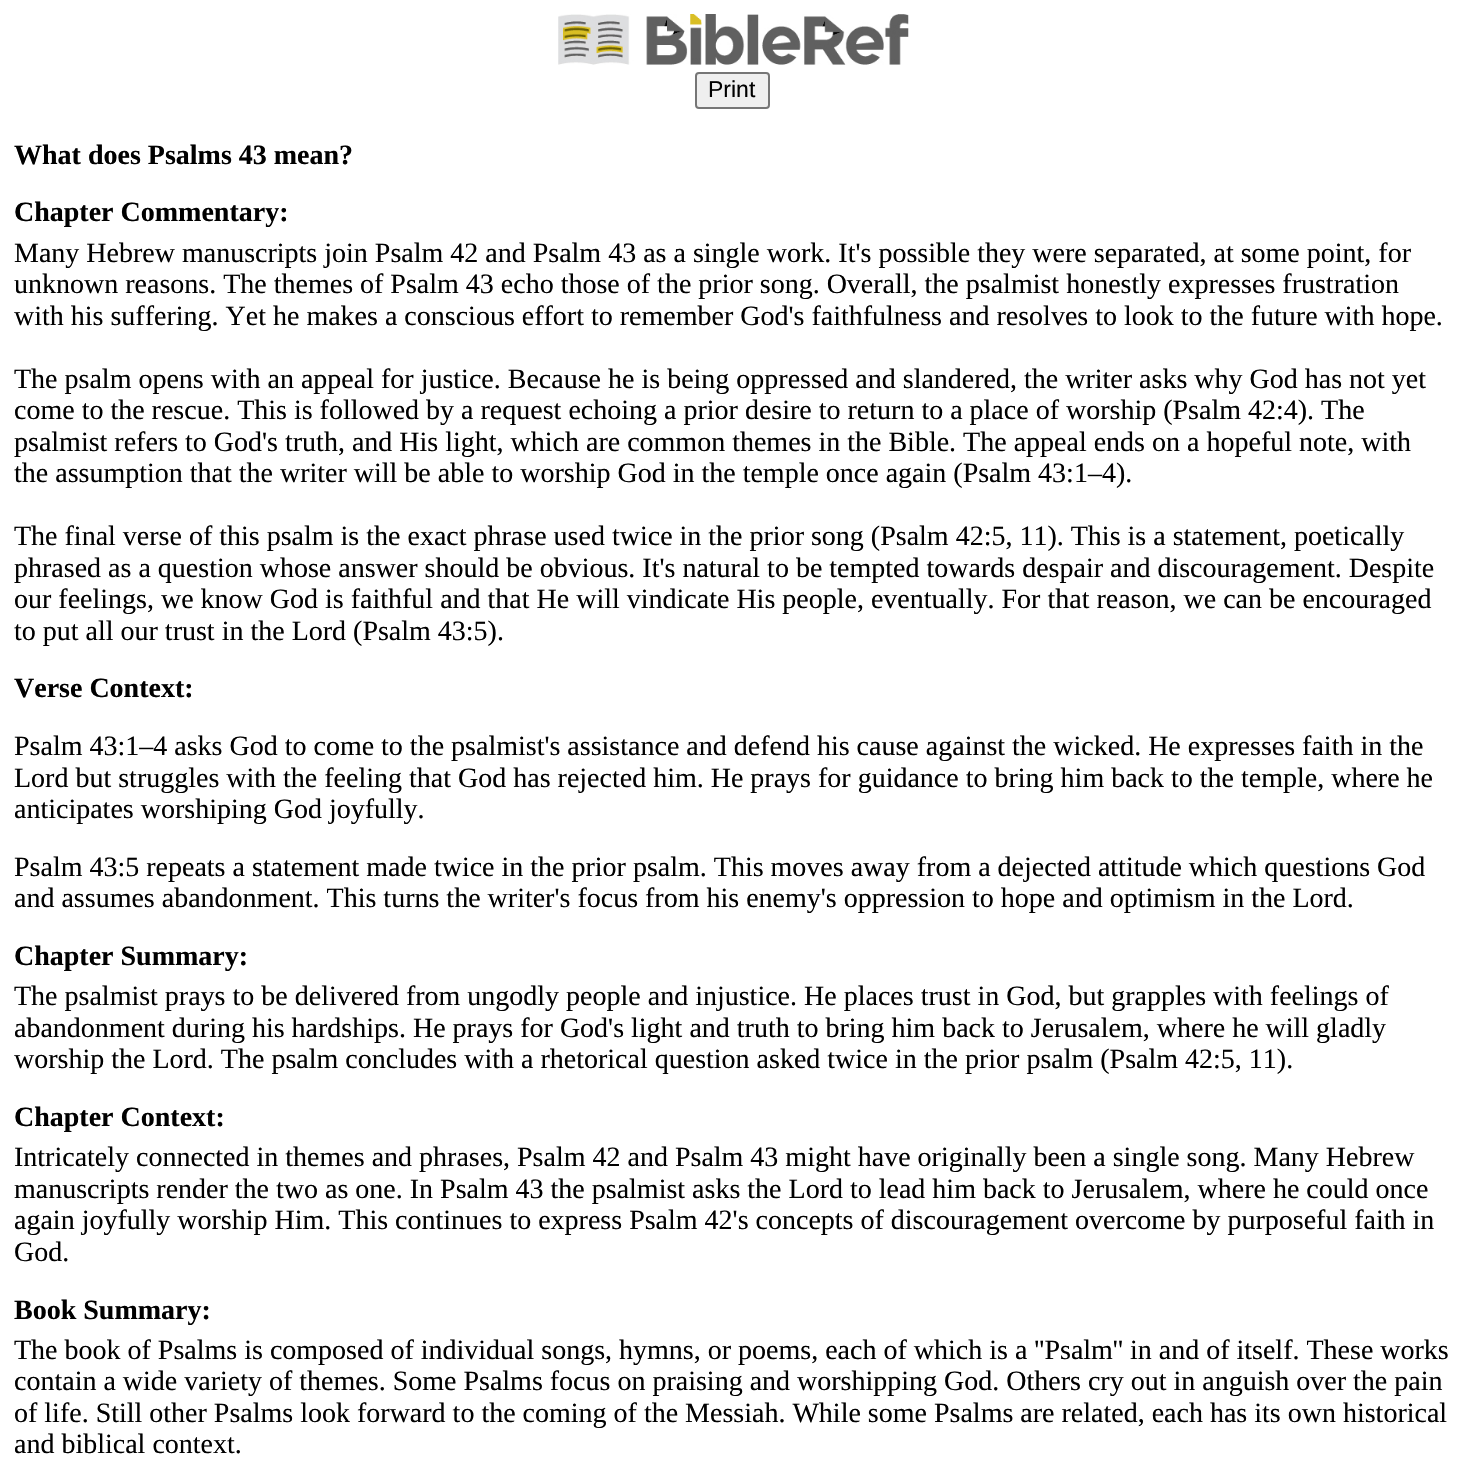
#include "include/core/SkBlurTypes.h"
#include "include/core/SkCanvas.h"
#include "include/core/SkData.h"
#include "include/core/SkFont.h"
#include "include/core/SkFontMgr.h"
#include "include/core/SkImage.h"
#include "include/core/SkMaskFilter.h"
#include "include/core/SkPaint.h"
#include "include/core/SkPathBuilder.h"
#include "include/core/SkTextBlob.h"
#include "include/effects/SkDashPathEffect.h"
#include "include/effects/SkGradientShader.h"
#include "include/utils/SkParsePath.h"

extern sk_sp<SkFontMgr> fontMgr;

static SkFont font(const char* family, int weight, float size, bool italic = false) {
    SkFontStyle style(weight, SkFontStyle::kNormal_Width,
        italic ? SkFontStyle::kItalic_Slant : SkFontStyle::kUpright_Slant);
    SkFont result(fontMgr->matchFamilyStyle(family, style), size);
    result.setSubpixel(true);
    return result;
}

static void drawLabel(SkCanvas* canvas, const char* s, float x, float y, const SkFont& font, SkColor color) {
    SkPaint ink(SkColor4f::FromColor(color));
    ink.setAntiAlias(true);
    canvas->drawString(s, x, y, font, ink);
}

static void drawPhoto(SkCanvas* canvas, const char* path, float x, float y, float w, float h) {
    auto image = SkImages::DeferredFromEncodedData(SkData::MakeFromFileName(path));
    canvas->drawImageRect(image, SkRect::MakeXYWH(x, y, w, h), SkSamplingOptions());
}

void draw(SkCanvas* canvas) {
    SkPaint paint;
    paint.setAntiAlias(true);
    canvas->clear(0xFFFFFFFF);
    drawPhoto(canvas, "assets/img1.png", 558, 14, 351, 51);
    paint.setColor(0xFFEFEFEF);
    canvas->drawRoundRect(SkRect::MakeXYWH(696, 73, 73, 35), 3, 3, paint);
    paint.setStroke(true);
    paint.setStrokeWidth(2);
    paint.setColor(0xFF767676);
    canvas->drawRoundRect(SkRect::MakeXYWH(696, 73, 73, 35), 3, 3, paint);
    SkFont font1 = font("Liberation Sans", 400, 23);
    drawLabel(canvas, "Print", 708, 97, font1, 0xFF000000);
    SkFont font2 = font("Liberation Serif", 700, 28);
    drawLabel(canvas, "What does Psalms 43 mean?", 14, 164, font2, 0xFF000000);
    drawLabel(canvas, "Chapter Commentary:", 14, 221, font2, 0xFF000000);
    SkFont font3 = font("Liberation Serif", 400, 28);
    drawLabel(canvas, "Many Hebrew manuscripts join Psalm 42 and Psalm 43 as a single work. It's possible they were separated, at some point, for", 14, 262, font3, 0xFF000000);
    drawLabel(canvas, "unknown reasons. The themes of Psalm 43 echo those of the prior song. Overall, the psalmist honestly expresses frustration", 14, 293, font3, 0xFF000000);
    drawLabel(canvas, "with his suffering. Yet he makes a conscious effort to remember God's faithfulness and resolves to look to the future with hope.", 14, 325, font3, 0xFF000000);
    drawLabel(canvas, "The psalm opens with an appeal for justice. Because he is being oppressed and slandered, the writer asks why God has not yet", 14, 388, font3, 0xFF000000);
    drawLabel(canvas, "come to the rescue. This is followed by a request echoing a prior desire to return to a place of worship (Psalm 42:4). The", 14, 419, font3, 0xFF000000);
    drawLabel(canvas, "psalmist refers to God's truth, and His light, which are common themes in the Bible. The appeal ends on a hopeful note, with", 14, 451, font3, 0xFF000000);
    drawLabel(canvas, "the assumption that the writer will be able to worship God in the temple once again (Psalm 43:1–4).", 14, 482, font3, 0xFF000000);
    drawLabel(canvas, "The final verse of this psalm is the exact phrase used twice in the prior song (Psalm 42:5, 11). This is a statement, poetically", 14, 545, font3, 0xFF000000);
    drawLabel(canvas, "phrased as a question whose answer should be obvious. It's natural to be tempted towards despair and discouragement. Despite", 14, 577, font3, 0xFF000000);
    drawLabel(canvas, "our feelings, we know God is faithful and that He will vindicate His people, eventually. For that reason, we can be encouraged", 14, 608, font3, 0xFF000000);
    drawLabel(canvas, "to put all our trust in the Lord (Psalm 43:5).", 14, 640, font3, 0xFF000000);
    drawLabel(canvas, "Verse Context:", 14, 697, font2, 0xFF000000);
    drawLabel(canvas, "Psalm 43:1–4 asks God to come to the psalmist's assistance and defend his cause against the wicked. He expresses faith in the", 14, 755, font3, 0xFF000000);
    drawLabel(canvas, "Lord but struggles with the feeling that God has rejected him. He prays for guidance to bring him back to the temple, where he", 14, 787, font3, 0xFF000000);
    drawLabel(canvas, "anticipates worshiping God joyfully.", 14, 818, font3, 0xFF000000);
    drawLabel(canvas, "Psalm 43:5 repeats a statement made twice in the prior psalm. This moves away from a dejected attitude which questions God", 14, 876, font3, 0xFF000000);
    drawLabel(canvas, "and assumes abandonment. This turns the writer's focus from his enemy's oppression to hope and optimism in the Lord.", 14, 907, font3, 0xFF000000);
    drawLabel(canvas, "Chapter Summary:", 14, 965, font2, 0xFF000000);
    drawLabel(canvas, "The psalmist prays to be delivered from ungodly people and injustice. He places trust in God, but grapples with feelings of", 14, 1005, font3, 0xFF000000);
    drawLabel(canvas, "abandonment during his hardships. He prays for God's light and truth to bring him back to Jerusalem, where he will gladly", 14, 1037, font3, 0xFF000000);
    drawLabel(canvas, "worship the Lord. The psalm concludes with a rhetorical question asked twice in the prior psalm (Psalm 42:5, 11).", 14, 1068, font3, 0xFF000000);
    drawLabel(canvas, "Chapter Context:", 14, 1126, font2, 0xFF000000);
    drawLabel(canvas, "Intricately connected in themes and phrases, Psalm 42 and Psalm 43 might have originally been a single song. Many Hebrew", 14, 1166, font3, 0xFF000000);
    drawLabel(canvas, "manuscripts render the two as one. In Psalm 43 the psalmist asks the Lord to lead him back to Jerusalem, where he could once", 14, 1198, font3, 0xFF000000);
    drawLabel(canvas, "again joyfully worship Him. This continues to express Psalm 42's concepts of discouragement overcome by purposeful faith in", 14, 1229, font3, 0xFF000000);
    drawLabel(canvas, "God.", 14, 1261, font3, 0xFF000000);
    drawLabel(canvas, "Book Summary:", 14, 1319, font2, 0xFF000000);
    drawLabel(canvas, "The book of Psalms is composed of individual songs, hymns, or poems, each of which is a ''Psalm'' in and of itself. These works", 14, 1359, font3, 0xFF000000);
    drawLabel(canvas, "contain a wide variety of themes. Some Psalms focus on praising and worshipping God. Others cry out in anguish over the pain", 14, 1390, font3, 0xFF000000);
    drawLabel(canvas, "of life. Still other Psalms look forward to the coming of the Messiah. While some Psalms are related, each has its own historical", 14, 1422, font3, 0xFF000000);
    drawLabel(canvas, "and biblical context.", 14, 1453, font3, 0xFF000000);
}
